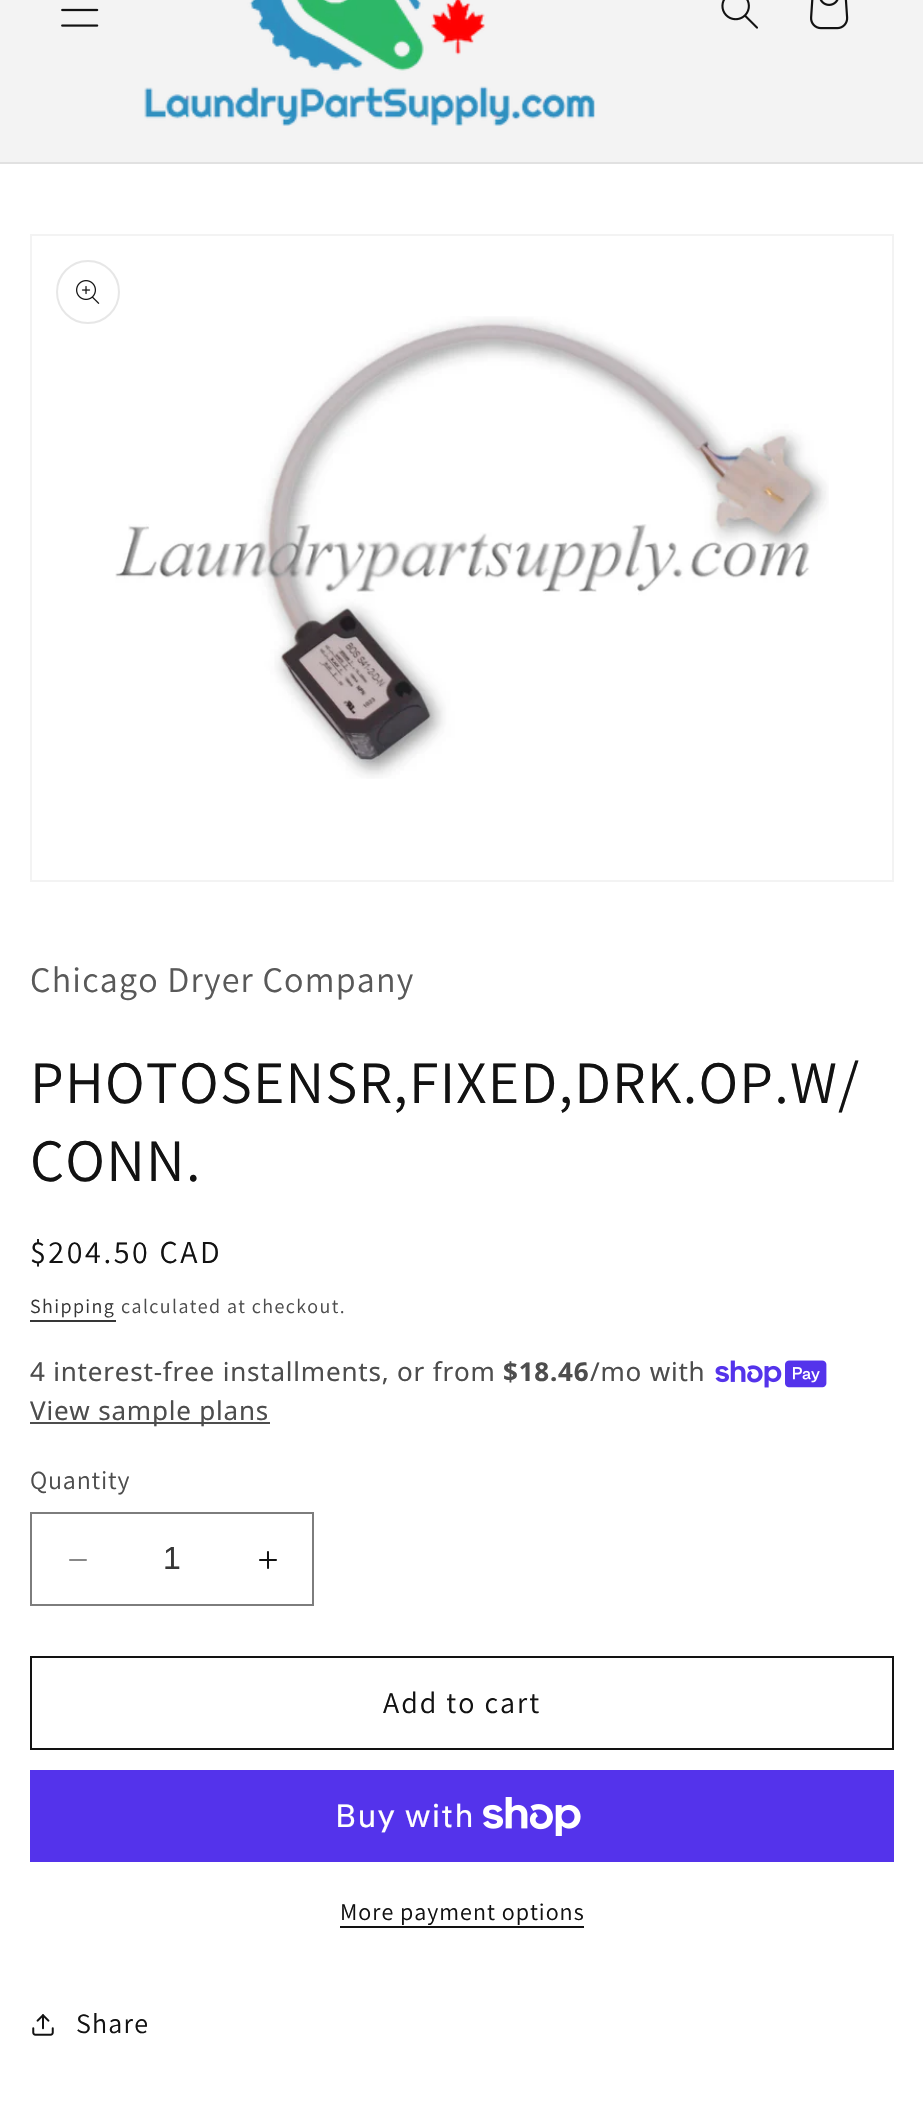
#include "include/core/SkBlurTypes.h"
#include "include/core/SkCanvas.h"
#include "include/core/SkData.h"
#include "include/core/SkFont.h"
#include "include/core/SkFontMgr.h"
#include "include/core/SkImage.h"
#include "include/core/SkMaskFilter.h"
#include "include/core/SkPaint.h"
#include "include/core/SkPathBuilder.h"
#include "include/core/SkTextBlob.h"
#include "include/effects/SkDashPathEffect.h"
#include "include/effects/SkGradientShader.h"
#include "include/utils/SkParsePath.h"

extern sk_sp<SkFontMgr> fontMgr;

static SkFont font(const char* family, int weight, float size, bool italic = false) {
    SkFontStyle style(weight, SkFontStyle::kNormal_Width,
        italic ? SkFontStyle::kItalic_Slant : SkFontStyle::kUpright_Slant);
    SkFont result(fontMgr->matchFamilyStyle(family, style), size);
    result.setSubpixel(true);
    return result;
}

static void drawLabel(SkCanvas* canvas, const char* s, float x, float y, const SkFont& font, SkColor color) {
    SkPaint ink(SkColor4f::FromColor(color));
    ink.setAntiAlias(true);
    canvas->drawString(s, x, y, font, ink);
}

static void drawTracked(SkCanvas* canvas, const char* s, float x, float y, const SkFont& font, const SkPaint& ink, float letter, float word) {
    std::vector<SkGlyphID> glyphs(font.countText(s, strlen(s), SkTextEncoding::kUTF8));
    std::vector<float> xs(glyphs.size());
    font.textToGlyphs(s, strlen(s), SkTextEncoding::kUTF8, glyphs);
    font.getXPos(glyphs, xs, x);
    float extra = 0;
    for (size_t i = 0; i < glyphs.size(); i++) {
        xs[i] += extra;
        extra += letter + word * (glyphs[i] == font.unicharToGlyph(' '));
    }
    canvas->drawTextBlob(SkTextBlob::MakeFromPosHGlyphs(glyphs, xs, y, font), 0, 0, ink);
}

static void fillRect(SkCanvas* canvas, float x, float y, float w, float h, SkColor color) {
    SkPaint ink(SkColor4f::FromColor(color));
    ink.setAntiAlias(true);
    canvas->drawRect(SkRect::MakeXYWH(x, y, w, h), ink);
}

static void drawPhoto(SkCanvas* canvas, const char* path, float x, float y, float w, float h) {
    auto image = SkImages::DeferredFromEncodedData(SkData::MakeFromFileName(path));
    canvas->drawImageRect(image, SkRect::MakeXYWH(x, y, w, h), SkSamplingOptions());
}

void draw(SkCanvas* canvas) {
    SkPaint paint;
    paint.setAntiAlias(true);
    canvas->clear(0xFFFFFFFF);
    fillRect(canvas, 0, 0, 923, 162, 0xFFF3F3F3);
    fillRect(canvas, 0, 162, 923, 2, 0xFFE1E1E1);
    drawPhoto(canvas, "assets/img1.png", 61, 8, 38, 19);
    drawPhoto(canvas, "assets/img2.png", 144, 0, 451, 126);
    drawPhoto(canvas, "assets/img3.png", 721, 0, 37, 29);
    drawPhoto(canvas, "assets/img4.png", 810, 0, 39, 30);
    paint.setStroke(true);
    paint.setStrokeWidth(2);
    paint.setColor(0xFFF3F3F3);
    canvas->drawRect(SkRect::MakeXYWH(31, 235, 862, 646), paint);
    drawPhoto(canvas, "assets/img6.png", 115, 316, 714, 463);
    paint.setColor(0xFFE7E7E7);
    canvas->drawCircle(88, 292, 31, paint);
    drawPhoto(canvas, "assets/img5.png", 76, 280, 24, 24);
    SkFont font1 = font("Assistant", 400, 36);
    paint.setStroke(false);
    paint.setColor(0xFF595959);
    drawTracked(canvas, "Chicago Dryer Company", 30, 992, font1, paint, 1.2f, 0);
    SkFont font2 = font("Assistant", 400, 60);
    paint.setColor(0xFF121212);
    drawTracked(canvas, "PHOTOSENSR,FIXED,DRK.OP.W/", 30, 1103, font2, paint, 1.2f, 0);
    drawTracked(canvas, "CONN.", 30, 1181, font2, paint, 1.2f, 0);
    SkFont font3 = font("Assistant", 400, 32);
    drawTracked(canvas, "$204.50 CAD", 30, 1263, font3, paint, 2.6f, 0);
    SkFont font4 = font("Assistant", 400, 20);
    paint.setColor(0xFF363636);
    drawTracked(canvas, "Shipping", 30, 1313, font4, paint, 1.4f, 0);
    fillRect(canvas, 30, 1320, 86, 2, 0xFF363636);
    paint.setColor(0xFF4D4D4D);
    drawTracked(canvas, "calculated at checkout.", 121, 1313, font4, paint, 1.4f, 0);
    SkFont font5 = font("Noto Sans", 400, 26);
    drawTracked(canvas, "4 interest-free installments, or from", 30, 1381, font5, paint, 0.8f, 0);
    SkFont font6 = font("Noto Sans", 700, 26);
    drawTracked(canvas, "$18.46", 503, 1381, font6, paint, 0.8f, 0);
    drawTracked(canvas, "/mo with", 590, 1381, font5, paint, 0.8f, 0);
    drawPhoto(canvas, "assets/img7.png", 715, 1360, 112, 28);
    fillRect(canvas, 30, 1422, 240, 2, 0xFF4D4D4D);
    drawTracked(canvas, "View sample plans", 30, 1420, font5, paint, 0.8f, 0);
    SkFont font7 = font("Assistant", 400, 26);
    drawTracked(canvas, "Quantity", 30, 1489, font7, paint, 0.8f, 0);
    drawPhoto(canvas, "assets/img8.png", 69, 1559, 18, 2);
    drawPhoto(canvas, "assets/img9.png", 259, 1551, 18, 18);
    paint.setStroke(true);
    paint.setColor(0xFF7D7D7D);
    canvas->drawRect(SkRect::MakeXYWH(31, 1513, 282, 92), paint);
    SkFont font8 = font("Liberation Sans", 400, 32);
    drawLabel(canvas, "1", 163, 1569, font8, 0xFF363636);
    paint.setColor(0xFF121212);
    canvas->drawRect(SkRect::MakeXYWH(31, 1657, 862, 92), paint);
    SkFont font9 = font("Assistant", 400, 30);
    paint.setStroke(false);
    drawTracked(canvas, "Add to cart", 383, 1713, font9, paint, 2, 0);
    fillRect(canvas, 30, 1770, 864, 92, 0xFF5433EB);
    SkFont font10 = font("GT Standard", 400, 32);
    paint.setColor(0xFFFFFFFF);
    drawTracked(canvas, "Buy with", 335, 1827, font10, paint, 1.2f, 0);
    drawPhoto(canvas, "assets/img10.png", 483, 1797, 98, 39);
    SkFont font11 = font("Assistant", 400, 24);
    paint.setColor(0xFF121212);
    drawTracked(canvas, "More payment options", 340, 1920, font11, paint, 1, 0);
    fillRect(canvas, 340, 1926, 244, 2, 0xFF121212);
    drawPhoto(canvas, "assets/img11.png", 32, 2014, 22, 22);
    SkFont font12 = font("Assistant", 400, 28);
    drawTracked(canvas, "Share", 76, 2033, font12, paint, 1.2f, 0);
}
